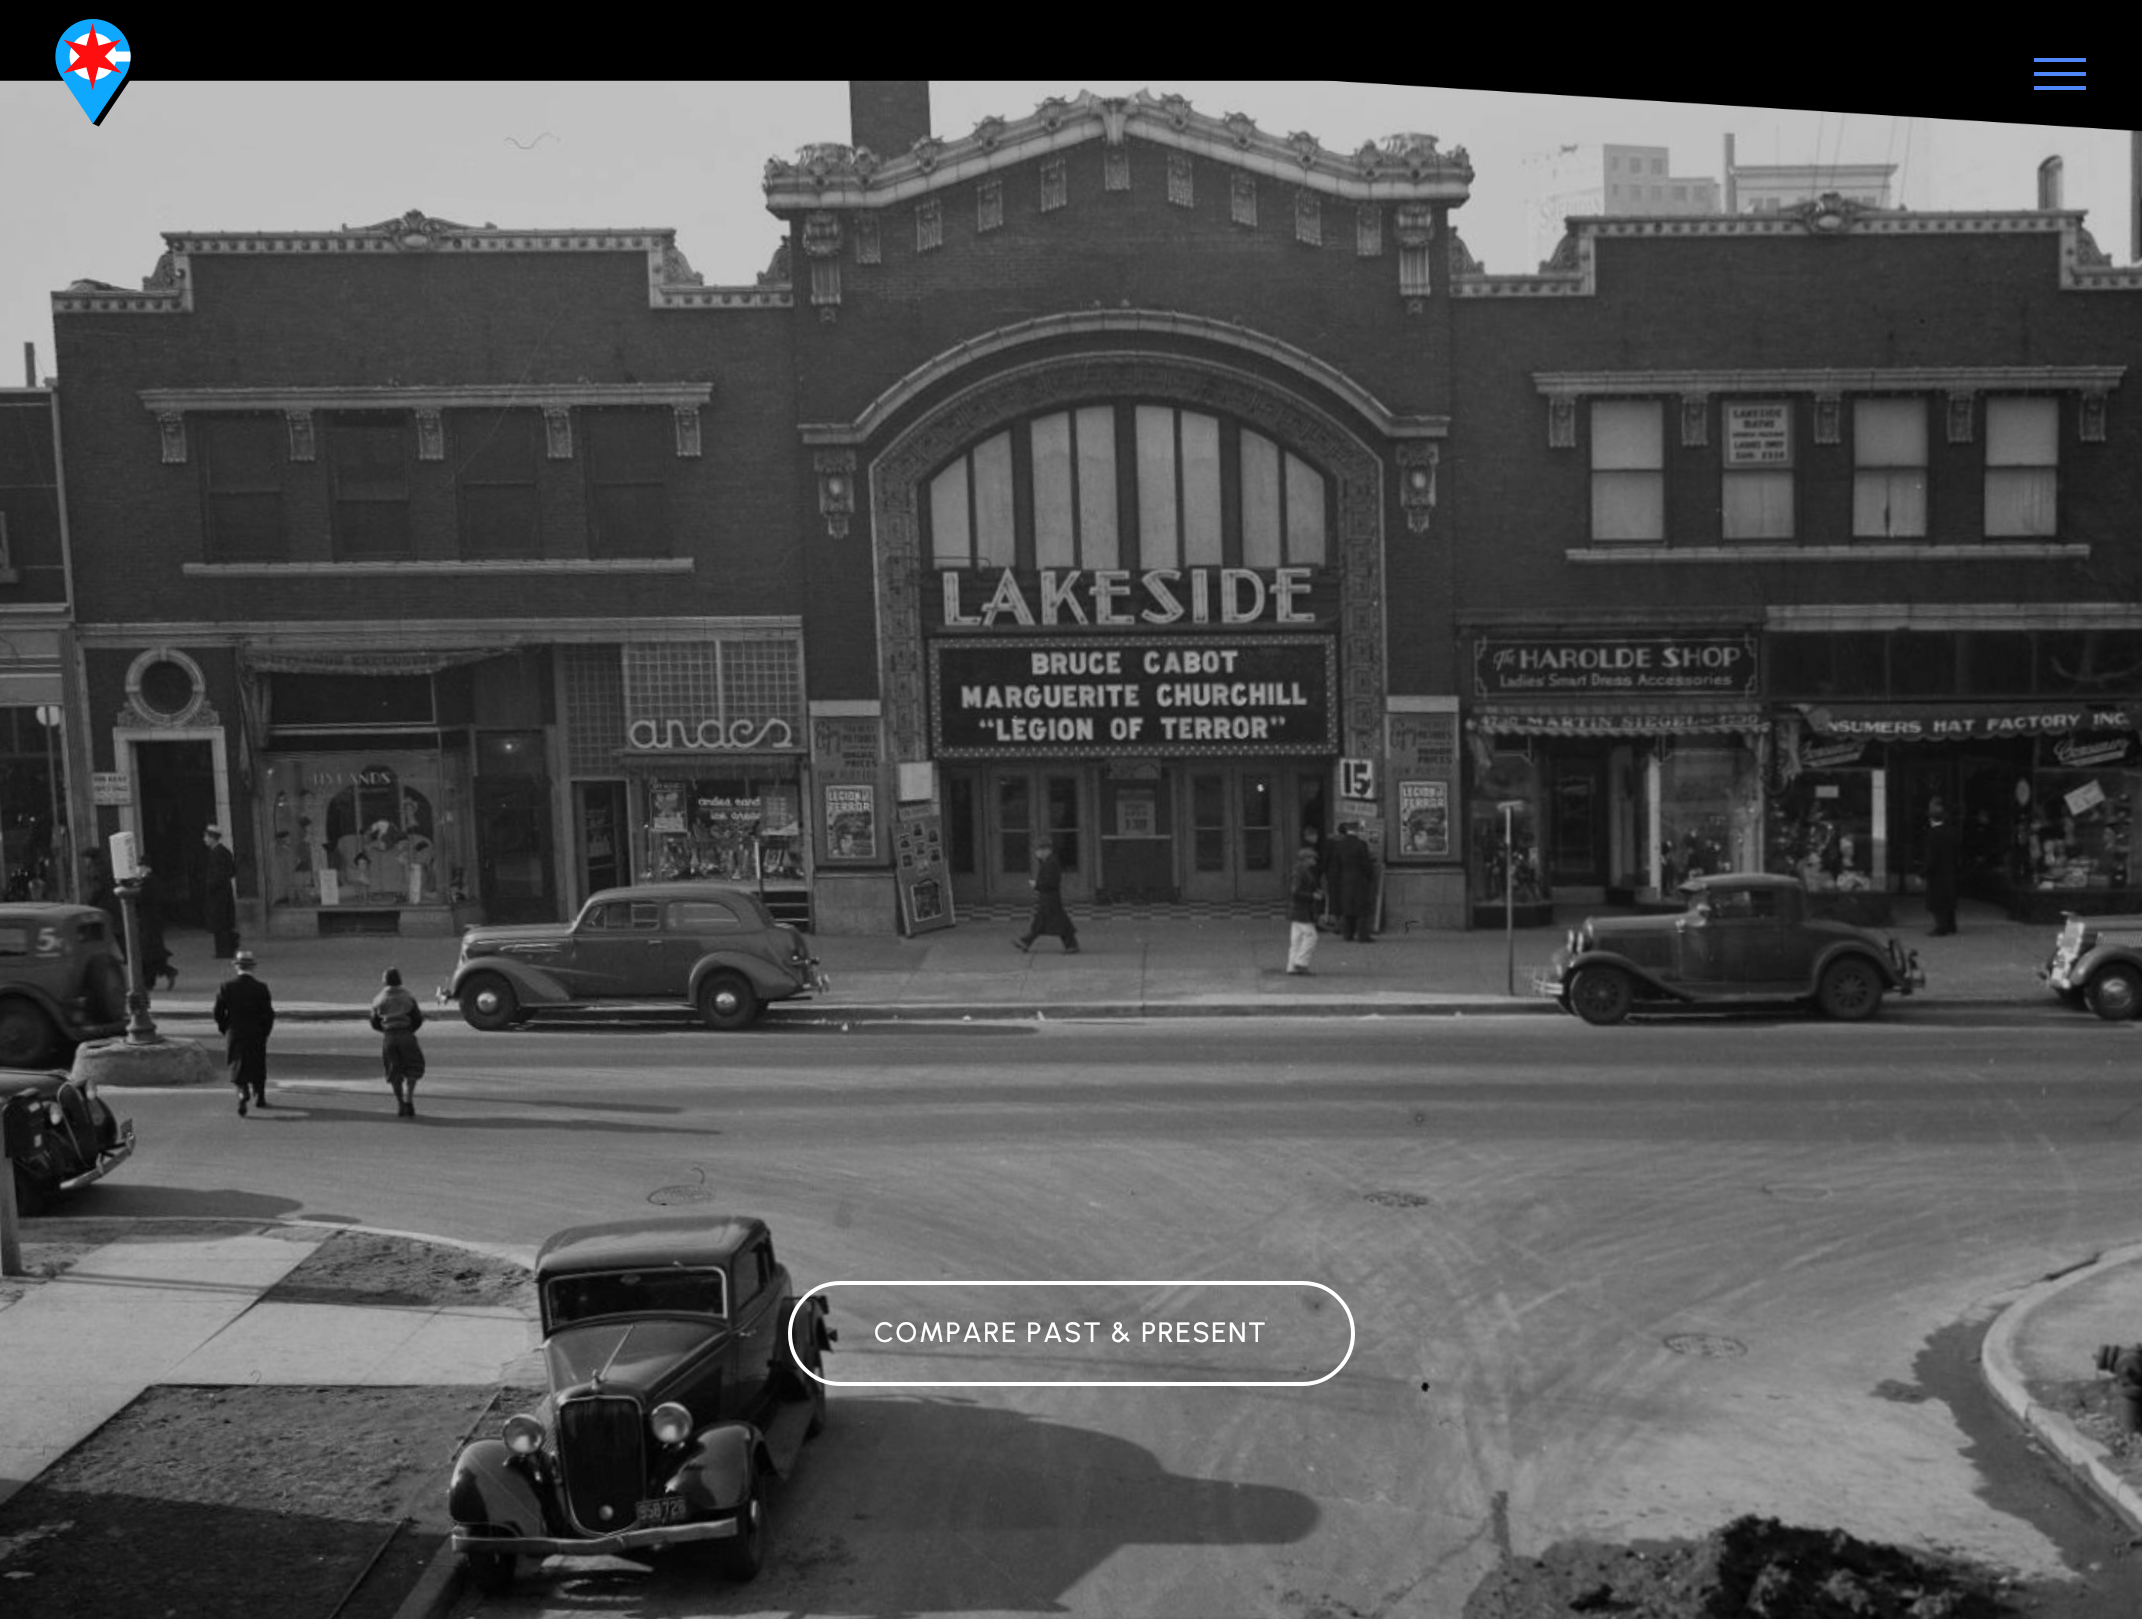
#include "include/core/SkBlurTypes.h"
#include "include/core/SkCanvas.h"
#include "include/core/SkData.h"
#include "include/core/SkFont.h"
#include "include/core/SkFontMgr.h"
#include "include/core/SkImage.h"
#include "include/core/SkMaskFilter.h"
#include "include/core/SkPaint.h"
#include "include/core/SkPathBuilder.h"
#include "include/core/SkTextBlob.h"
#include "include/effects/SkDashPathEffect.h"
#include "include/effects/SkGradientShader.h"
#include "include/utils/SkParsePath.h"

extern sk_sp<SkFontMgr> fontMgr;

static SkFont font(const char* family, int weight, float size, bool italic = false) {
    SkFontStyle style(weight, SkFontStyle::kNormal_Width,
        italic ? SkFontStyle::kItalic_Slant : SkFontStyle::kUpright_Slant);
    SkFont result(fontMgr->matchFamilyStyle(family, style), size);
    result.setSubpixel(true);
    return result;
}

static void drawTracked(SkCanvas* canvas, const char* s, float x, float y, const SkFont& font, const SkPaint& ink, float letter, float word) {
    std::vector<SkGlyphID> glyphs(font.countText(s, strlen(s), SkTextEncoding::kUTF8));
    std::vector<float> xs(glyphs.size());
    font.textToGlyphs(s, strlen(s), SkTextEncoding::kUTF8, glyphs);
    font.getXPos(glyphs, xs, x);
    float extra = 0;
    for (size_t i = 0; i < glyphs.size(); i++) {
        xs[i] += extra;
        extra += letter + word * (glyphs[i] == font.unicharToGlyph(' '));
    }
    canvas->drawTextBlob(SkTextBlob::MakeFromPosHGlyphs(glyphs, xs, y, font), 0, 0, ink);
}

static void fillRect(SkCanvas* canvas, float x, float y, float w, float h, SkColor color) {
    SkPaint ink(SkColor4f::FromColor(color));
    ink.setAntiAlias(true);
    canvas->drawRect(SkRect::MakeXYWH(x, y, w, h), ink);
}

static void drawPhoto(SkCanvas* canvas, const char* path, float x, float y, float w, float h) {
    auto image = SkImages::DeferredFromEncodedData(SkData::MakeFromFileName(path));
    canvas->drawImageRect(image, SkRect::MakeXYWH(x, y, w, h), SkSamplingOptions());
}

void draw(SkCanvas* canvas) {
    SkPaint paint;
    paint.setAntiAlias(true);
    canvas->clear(0xFFFFFFFF);
    drawPhoto(canvas, "assets/img2.png", 0, 0, 2142, 1619);
    drawPhoto(canvas, "assets/img1.png", 55, 19, 76, 108);
    fillRect(canvas, 2034, 58, 52, 4, 0xFF4F87FB);
    fillRect(canvas, 2034, 72, 52, 4, 0xFF4F87FB);
    fillRect(canvas, 2034, 86, 52, 4, 0xFF4F87FB);
    paint.setStroke(true);
    paint.setStrokeWidth(4);
    paint.setColor(0xFFFFFFFF);
    canvas->drawRoundRect(SkRect::MakeXYWH(790, 1283, 563, 101), 50.5f, 50.5f, paint);
    SkFont font1 = font("Urbanist", 500, 28);
    paint.setStroke(false);
    drawTracked(canvas, "COMPARE PAST & PRESENT", 874, 1342, font1, paint, 1.75f, 0);
}
